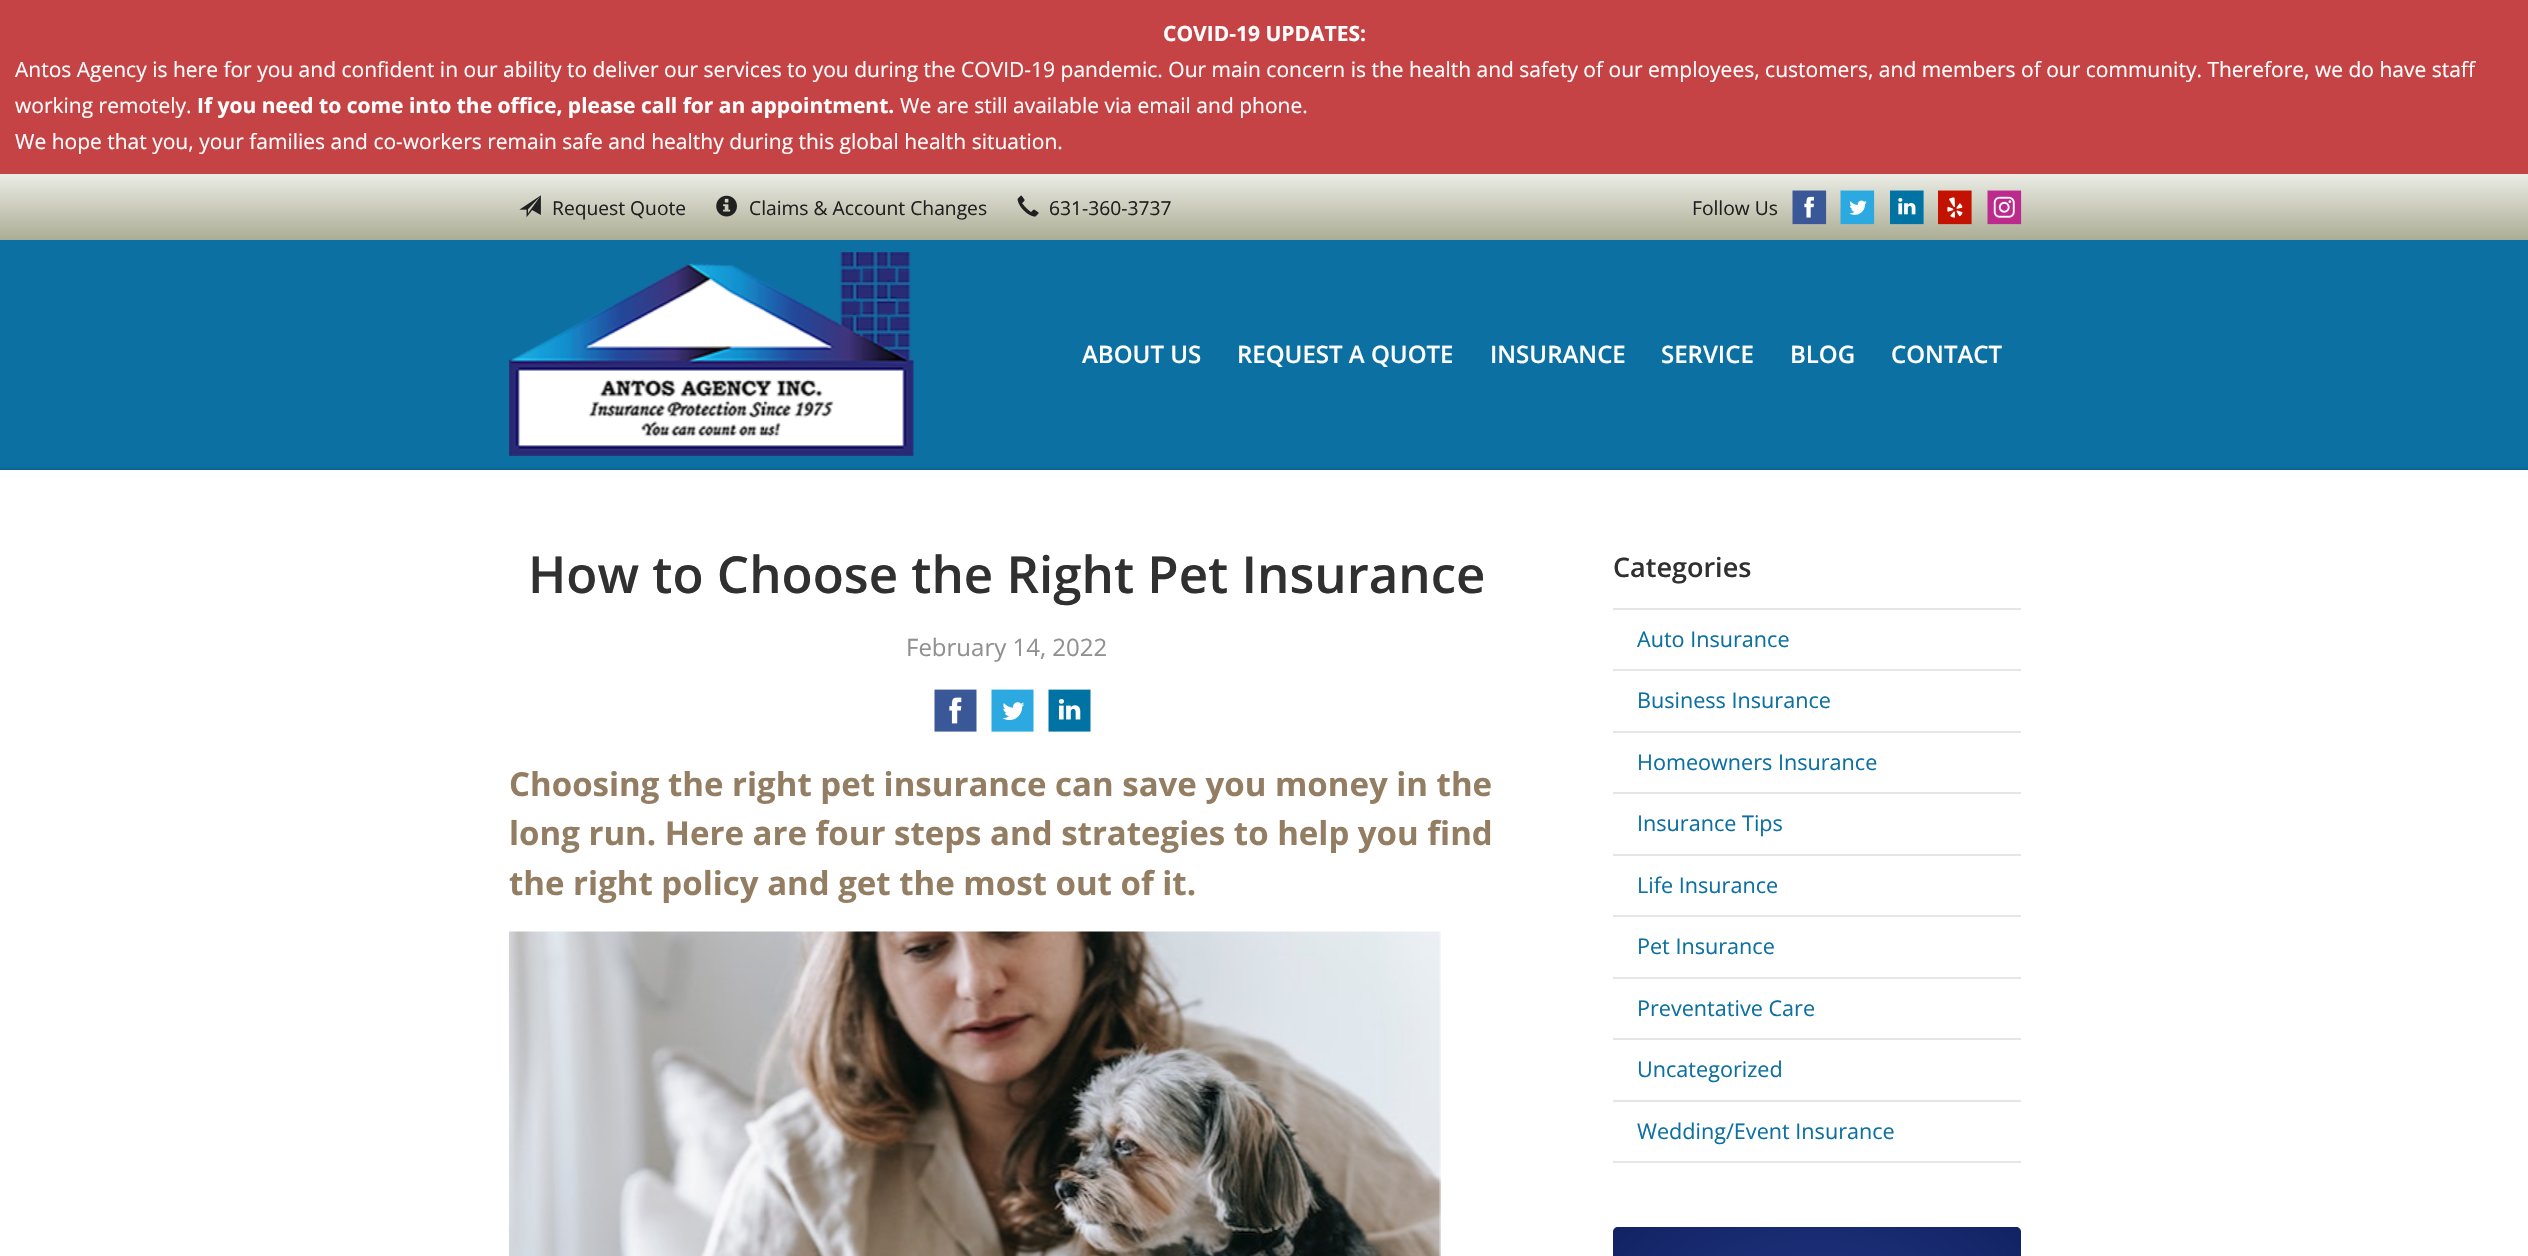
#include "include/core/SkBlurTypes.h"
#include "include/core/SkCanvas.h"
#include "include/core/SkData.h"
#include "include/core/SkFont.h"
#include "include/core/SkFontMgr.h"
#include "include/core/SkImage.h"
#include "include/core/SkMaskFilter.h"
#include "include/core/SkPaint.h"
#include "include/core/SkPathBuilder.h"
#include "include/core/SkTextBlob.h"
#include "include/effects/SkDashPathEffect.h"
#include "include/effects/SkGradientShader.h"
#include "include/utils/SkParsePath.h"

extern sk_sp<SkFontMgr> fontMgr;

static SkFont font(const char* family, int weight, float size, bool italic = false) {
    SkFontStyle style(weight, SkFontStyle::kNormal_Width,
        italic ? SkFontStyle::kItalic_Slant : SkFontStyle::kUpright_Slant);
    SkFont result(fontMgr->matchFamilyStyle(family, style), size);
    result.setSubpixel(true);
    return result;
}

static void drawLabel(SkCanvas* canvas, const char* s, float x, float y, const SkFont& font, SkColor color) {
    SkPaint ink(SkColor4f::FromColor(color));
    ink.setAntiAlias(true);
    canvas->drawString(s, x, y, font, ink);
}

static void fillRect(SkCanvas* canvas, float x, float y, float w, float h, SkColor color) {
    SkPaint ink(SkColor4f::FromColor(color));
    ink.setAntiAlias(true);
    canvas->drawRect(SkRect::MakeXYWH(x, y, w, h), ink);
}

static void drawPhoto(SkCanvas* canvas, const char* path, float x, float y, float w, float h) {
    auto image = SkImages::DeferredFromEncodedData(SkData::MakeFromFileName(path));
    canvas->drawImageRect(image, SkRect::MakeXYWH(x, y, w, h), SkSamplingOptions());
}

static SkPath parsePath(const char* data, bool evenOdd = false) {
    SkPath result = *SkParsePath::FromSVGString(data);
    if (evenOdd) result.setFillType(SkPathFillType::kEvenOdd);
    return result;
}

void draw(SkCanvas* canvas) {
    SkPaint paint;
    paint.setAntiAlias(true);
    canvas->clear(0xFFC54344);
    SkFont font1 = font("Open Sans", 700, 21);
    drawLabel(canvas, "COVID-19 UPDATES:", 1163, 41, font1, 0xFFFFFFFF);
    SkFont font2 = font("Open Sans", 400, 21);
    drawLabel(canvas, "Antos Agency is here for you and confident in our ability to deliver our services to you during the COVID-19 pandemic. Our main concern is the health and safety of our employees, customers, and members of our community. Therefore, we do have staff", 15, 77, font2, 0xFFFFFFFF);
    drawLabel(canvas, "working remotely.", 15, 113, font2, 0xFFFFFFFF);
    drawLabel(canvas, "If you need to come into the office, please call for an appointment.", 197, 113, font1, 0xFFFFFFFF);
    drawLabel(canvas, "We are still available via email and phone.", 900, 113, font2, 0xFFFFFFFF);
    drawLabel(canvas, "We hope that you, your families and co-workers remain safe and healthy during this global health situation.", 15, 149, font2, 0xFFFFFFFF);
    {
        const SkColor colors[] = {0xFFEBECE5, 0xFFACAD94};
        const float stops[] = {0, 1};
        const SkPoint ends[] = {{1265, 174}, {1265, 240}};
        paint.setShader(SkGradientShader::MakeLinear(ends, colors, stops, 2, SkTileMode::kClamp));
        paint.setAlpha(255);
    }
    canvas->drawRect(SkRect::MakeXYWH(0, 174, 2528, 66), paint);
    drawPhoto(canvas, "assets/img1.png", 519, 195, 22, 22);
    SkFont font3 = font("Open Sans", 400, 19.25f);
    drawLabel(canvas, "Request Quote", 552, 215, font3, 0xFF202020);
    drawPhoto(canvas, "assets/img2.png", 716, 195, 21, 22);
    drawLabel(canvas, "Claims & Account Changes", 749, 215, font3, 0xFF202020);
    drawPhoto(canvas, "assets/img3.png", 1017, 195, 22, 22);
    drawLabel(canvas, "631-360-3737", 1049, 215, font3, 0xFF202020);
    drawLabel(canvas, "Follow Us", 1692, 215, font3, 0xFF202020);
    fillRect(canvas, 1804, 196, 10, 22, 0xFFFFFFFF);
    drawPhoto(canvas, "assets/img4.png", 1792, 190, 35, 35);
    fillRect(canvas, 1849, 200, 18, 15, 0xFFFFFFFF);
    drawPhoto(canvas, "assets/img5.png", 1840, 190, 35, 35);
    fillRect(canvas, 1898, 198, 18, 17, 0xFFFFFFFF);
    drawPhoto(canvas, "assets/img6.png", 1890, 190, 34, 35);
    fillRect(canvas, 1947, 197, 16, 21, 0xFFFFFFFF);
    drawPhoto(canvas, "assets/img7.png", 1938, 190, 34, 35);
    fillRect(canvas, 1993, 196, 22, 22, 0xFFFFFFFF);
    drawPhoto(canvas, "assets/img8.png", 1987, 190, 35, 35);
    fillRect(canvas, 0, 240, 2528, 228, 0xFF0C70A2);
    fillRect(canvas, 0, 468, 2528, 2, 0xFF0B6592);
    drawPhoto(canvas, "assets/img9.png", 509, 252, 405, 204);
    SkFont font4 = font("Open Sans", 600, 24);
    drawLabel(canvas, "ABOUT US", 1082, 363, font4, 0xFFFFFFFF);
    drawLabel(canvas, "REQUEST A QUOTE", 1237, 363, font4, 0xFFFFFFFF);
    drawLabel(canvas, "INSURANCE", 1490, 363, font4, 0xFFFFFFFF);
    drawLabel(canvas, "SERVICE", 1661, 363, font4, 0xFFFFFFFF);
    drawLabel(canvas, "BLOG", 1790, 363, font4, 0xFFFFFFFF);
    drawLabel(canvas, "CONTACT", 1891, 363, font4, 0xFFFFFFFF);
    fillRect(canvas, 0, 470, 2528, 786, 0xFFFFFFFF);
    SkFont font5 = font("Open Sans", 600, 51);
    drawLabel(canvas, "How to Choose the Right Pet Insurance", 528, 593, font5, 0xFF303030);
    SkFont font6 = font("Open Sans", 400, 24);
    drawLabel(canvas, "February 14, 2022", 906, 656, font6, 0xFF909090);
    drawPhoto(canvas, "assets/img10.png", 934, 689, 43, 43);
    drawPhoto(canvas, "assets/img11.png", 991, 689, 43, 43);
    drawPhoto(canvas, "assets/img12.png", 1048, 689, 43, 43);
    SkFont font7 = font("Open Sans", 700, 33);
    drawLabel(canvas, "Choosing the right pet insurance can save you money in the", 509, 796, font7, 0xFF947E63);
    drawLabel(canvas, "long run. Here are four steps and strategies to help you find", 509, 845, font7, 0xFF947E63);
    drawLabel(canvas, "the right policy and get the most out of it.", 509, 895, font7, 0xFF947E63);
    drawPhoto(canvas, "assets/img13.png", 509, 931, 932, 325);
    SkFont font8 = font("Open Sans", 600, 27);
    drawLabel(canvas, "Categories", 1613, 577, font8, 0xFF303030);
    fillRect(canvas, 1613, 608, 408, 2, 0xFFE6E6E6);
    fillRect(canvas, 1613, 669, 408, 2, 0xFFE6E6E6);
    SkFont font9 = font("Open Sans", 400, 21.6f);
    drawLabel(canvas, "Auto Insurance", 1637, 647, font9, 0xFF0C70A2);
    fillRect(canvas, 1613, 731, 408, 2, 0xFFE6E6E6);
    drawLabel(canvas, "Business Insurance", 1637, 708, font9, 0xFF0C70A2);
    fillRect(canvas, 1613, 792, 408, 2, 0xFFE6E6E6);
    drawLabel(canvas, "Homeowners Insurance", 1637, 770, font9, 0xFF0C70A2);
    fillRect(canvas, 1613, 854, 408, 2, 0xFFE6E6E6);
    drawLabel(canvas, "Insurance Tips", 1637, 831, font9, 0xFF0C70A2);
    fillRect(canvas, 1613, 915, 408, 2, 0xFFE6E6E6);
    drawLabel(canvas, "Life Insurance", 1637, 893, font9, 0xFF0C70A2);
    fillRect(canvas, 1613, 977, 408, 2, 0xFFE6E6E6);
    drawLabel(canvas, "Pet Insurance", 1637, 954, font9, 0xFF0C70A2);
    fillRect(canvas, 1613, 1038, 408, 2, 0xFFE6E6E6);
    drawLabel(canvas, "Preventative Care", 1637, 1016, font9, 0xFF0C70A2);
    fillRect(canvas, 1613, 1100, 408, 2, 0xFFE6E6E6);
    drawLabel(canvas, "Uncategorized", 1637, 1077, font9, 0xFF0C70A2);
    fillRect(canvas, 1613, 1161, 408, 2, 0xFFE6E6E6);
    drawLabel(canvas, "Wedding/Event Insurance", 1637, 1139, font9, 0xFF0C70A2);
    {
        const SkColor colors[] = {0xFF283C8F, 0xFF122363};
        const float stops[] = {0, 1};
        SkMatrix m = SkMatrix::Translate(1817, 1420).preScale(288, 273);
        paint.setShader(SkGradientShader::MakeRadial({0, 0}, 1, colors, stops, 2, SkTileMode::kClamp, 0, &m));
        paint.setAlpha(255);
    }
    canvas->drawPath(parsePath("M1618 1227H2016C2019 1227 2021 1229 2021 1232V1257H1613V1232C1613 1229 1615 1227 1618 1227Z"), paint);
}
